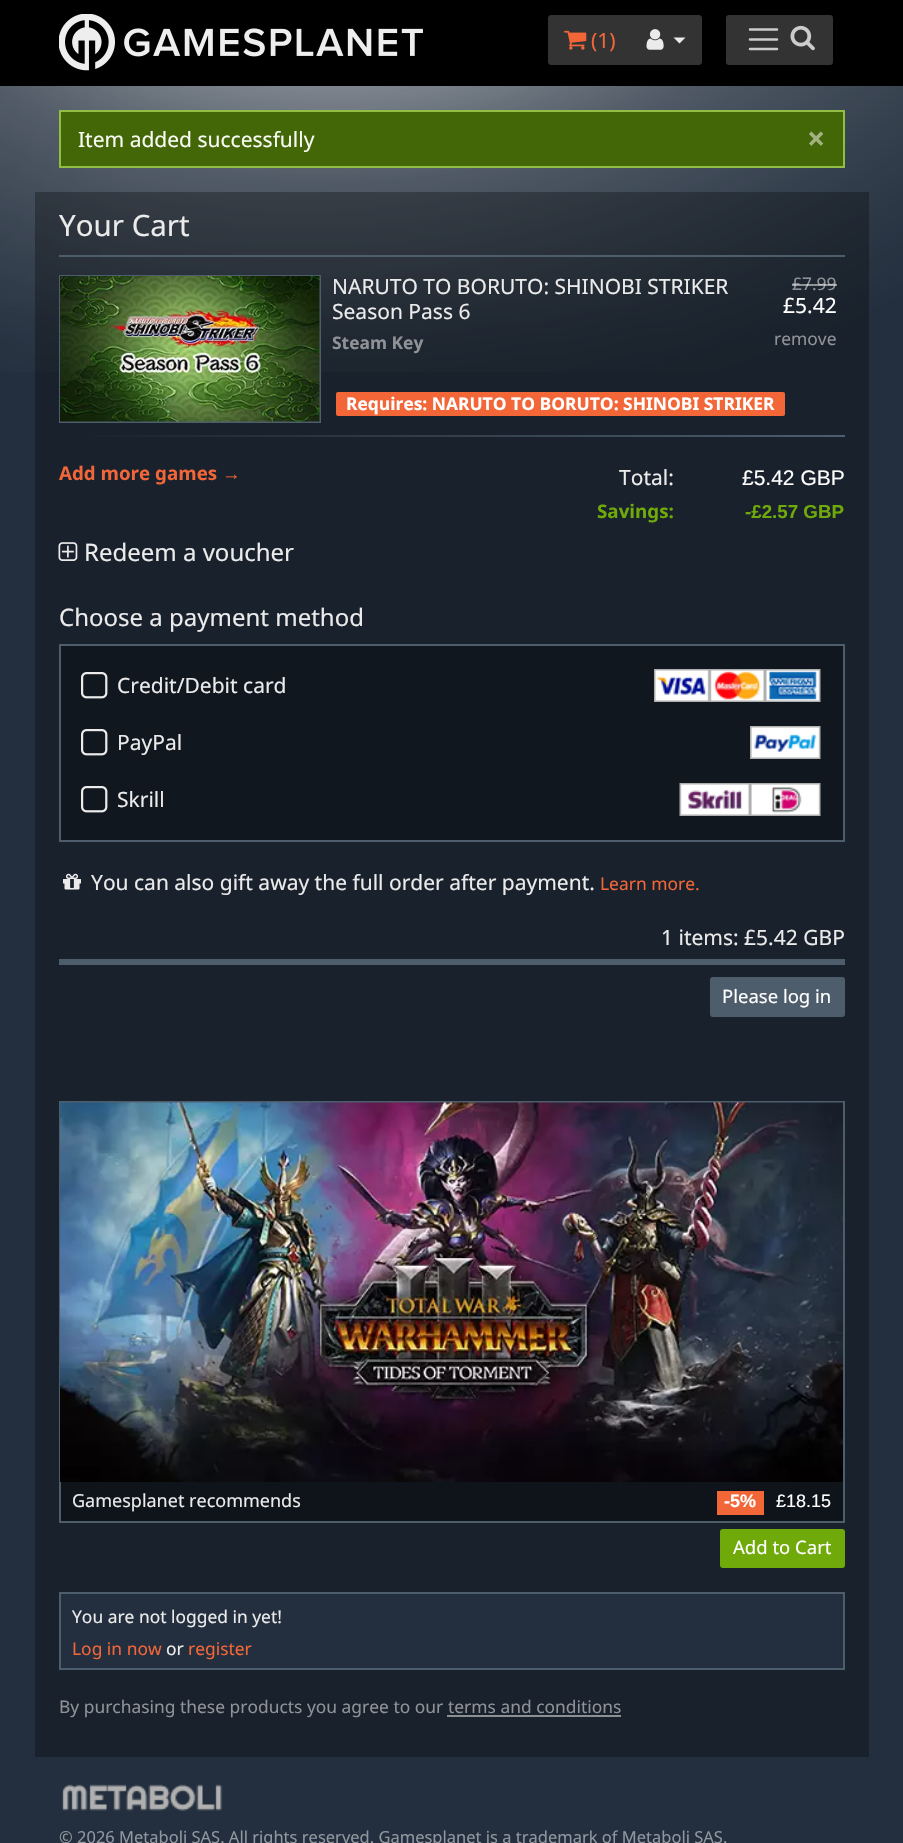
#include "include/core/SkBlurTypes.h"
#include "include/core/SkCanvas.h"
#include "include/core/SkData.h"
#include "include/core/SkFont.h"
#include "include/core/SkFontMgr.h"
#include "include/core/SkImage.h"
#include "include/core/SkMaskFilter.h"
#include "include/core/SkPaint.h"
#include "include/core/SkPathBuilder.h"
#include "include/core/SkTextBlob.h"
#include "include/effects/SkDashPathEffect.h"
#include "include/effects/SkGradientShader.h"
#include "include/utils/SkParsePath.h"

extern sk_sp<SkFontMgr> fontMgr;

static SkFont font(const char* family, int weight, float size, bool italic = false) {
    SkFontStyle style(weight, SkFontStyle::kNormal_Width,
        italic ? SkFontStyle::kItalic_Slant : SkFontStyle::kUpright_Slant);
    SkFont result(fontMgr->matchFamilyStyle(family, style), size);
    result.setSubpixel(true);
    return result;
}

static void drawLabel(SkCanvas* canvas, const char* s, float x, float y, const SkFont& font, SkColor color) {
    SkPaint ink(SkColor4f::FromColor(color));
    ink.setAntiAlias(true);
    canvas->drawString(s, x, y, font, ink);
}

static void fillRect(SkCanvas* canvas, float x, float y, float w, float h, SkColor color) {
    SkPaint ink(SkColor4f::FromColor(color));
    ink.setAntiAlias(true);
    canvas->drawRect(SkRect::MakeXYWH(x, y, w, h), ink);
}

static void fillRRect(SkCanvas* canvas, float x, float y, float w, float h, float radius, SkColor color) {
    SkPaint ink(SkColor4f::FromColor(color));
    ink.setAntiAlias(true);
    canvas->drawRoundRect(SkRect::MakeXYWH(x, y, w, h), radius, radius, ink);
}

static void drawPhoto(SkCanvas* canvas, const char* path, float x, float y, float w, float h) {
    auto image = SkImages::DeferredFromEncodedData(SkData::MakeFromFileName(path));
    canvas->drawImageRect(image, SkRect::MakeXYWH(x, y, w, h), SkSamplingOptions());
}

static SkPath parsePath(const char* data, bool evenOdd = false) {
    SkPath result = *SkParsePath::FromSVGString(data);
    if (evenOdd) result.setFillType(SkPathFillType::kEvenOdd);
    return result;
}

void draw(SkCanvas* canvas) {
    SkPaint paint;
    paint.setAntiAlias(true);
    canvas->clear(0xFF232F3E);
    drawPhoto(canvas, "assets/img1.png", 0, 86, 903, 286);
    fillRect(canvas, 0, 0, 903, 86, 0xFF000000);
    drawPhoto(canvas, "assets/img2.png", 59, 14, 364, 57);
    paint.setColor(0xFF333333);
    canvas->drawPath(parsePath("M551 15H632V65H551C549.5 65 548 63.5 548 62V18C548 16.5 549.5 15 551 15Z"), paint);
    drawPhoto(canvas, "assets/img3.png", 564, 30, 23, 20);
    SkFont font1 = font("Noto Sans", 400, 21);
    drawLabel(canvas, "(1)", 591, 48, font1, 0xFFF26638);
    canvas->drawPath(parsePath("M630 15H699C700.5 15 702 16.5 702 18V62C702 63.5 700.5 65 699 65H630Z"), paint);
    drawPhoto(canvas, "assets/img4.png", 646, 29, 18, 21);
    paint.setColor(0xFFEBEBEB);
    canvas->drawPath(parsePath("M673.5 37.5H685.5L679.5 43.5Z"), paint);
    fillRRect(canvas, 726, 15, 107, 50, 3, 0xFF333333);
    paint.setStroke(true);
    paint.setStrokeWidth(2.5f);
    paint.setStrokeCap(SkPaint::kRound_Cap);
    paint.setColor(0xFFCCCCCC);
    canvas->drawPath(parsePath("M750 29.5H777M750 39.5H777M750 49H777"), paint);
    drawPhoto(canvas, "assets/img5.png", 790, 25, 25, 26);
    paint.setStroke(false);
    paint.setColor(0xFF436606);
    canvas->drawRect(SkRect::MakeXYWH(60, 111, 784, 56), paint);
    paint.setStroke(true);
    paint.setStrokeWidth(2);
    paint.setStrokeCap(SkPaint::kButt_Cap);
    paint.setColor(0xFF92BE45);
    canvas->drawRect(SkRect::MakeXYWH(60, 111, 784, 56), paint);
    drawLabel(canvas, "Item added successfully", 78, 147, font1, 0xFFF9FCF5);
    SkFont font2 = font("Noto Sans", 700, 32);
    drawLabel(canvas, "×", 807, 150, font2, 0xFFA1B383);
    fillRect(canvas, 35, 192, 834, 1565, 0x4D000000);
    SkFont font3 = font("Noto Sans", 400, 29.5f);
    drawLabel(canvas, "Your Cart", 59, 236, font3, 0xFFEBEBEB);
    fillRect(canvas, 59, 255, 786, 2, 0xFF4E5D6C);
    paint.setColor(0xFF4E5D6C);
    canvas->drawRect(SkRect::MakeXYWH(60, 276, 260, 146), paint);
    drawPhoto(canvas, "assets/img6.png", 60, 276, 260, 146);
    drawLabel(canvas, "NARUTO TO BORUTO: SHINOBI STRIKER", 332, 294, font1, 0xFFEBEBEB);
    drawLabel(canvas, "Season Pass 6", 332, 319, font1, 0xFFEBEBEB);
    SkFont font4 = font("Noto Sans", 400, 17.4f);
    drawLabel(canvas, "£7.99", 792, 290, font4, 0xFF8F9398);
    fillRect(canvas, 792, 284, 45, 2, 0x80FFFFFF);
    drawLabel(canvas, "£5.42", 783, 313, font1, 0xFFFFFFFF);
    drawLabel(canvas, "remove", 774, 345, font4, 0xFF8F9398);
    SkFont font5 = font("Noto Sans", 700, 17.4f);
    drawLabel(canvas, "Steam Key", 332, 349, font5, 0xFF8F9398);
    fillRRect(canvas, 336, 392, 449, 24, 2, 0xFFF26638);
    drawLabel(canvas, "Requires: NARUTO TO BORUTO: SHINOBI STRIKER", 346, 410, font5, 0xFFFFFFFF);
    paint.setStroke(false);
    {
        const SkColor colors[] = {0xFF4E5D6C, 0xFF19212B};
        const float stops[] = {0, 1};
        const SkPoint ends[] = {{845, 436}, {59, 436}};
        paint.setShader(SkGradientShader::MakeLinear(ends, colors, stops, 2, SkTileMode::kClamp));
        paint.setAlpha(255);
    }
    canvas->drawRect(SkRect::MakeXYWH(92, 435, 753, 2), paint);
    SkFont font6 = font("Noto Sans", 700, 18.75f);
    drawLabel(canvas, "Add more games", 59, 480, font6, 0xFFF26638);
    SkFont font7 = font("Liberation Sans", 700, 18.75f);
    drawLabel(canvas, "→", 222, 480, font7, 0xFFF26638);
    drawLabel(canvas, "Total:", 619, 485, font1, 0xFFEBEBEB);
    SkFont font8 = font("Liberation Sans", 400, 21);
    drawLabel(canvas, "£5.42 GBP", 742, 485, font8, 0xFFFFFFFF);
    drawLabel(canvas, "Savings:", 597, 518, font6, 0xFF6FAA0A);
    drawLabel(canvas, "-£2.57 GBP", 745, 518, font7, 0xFF6FAA0A);
    drawPhoto(canvas, "assets/img7.png", 58, 542, 20, 19);
    SkFont font9 = font("Noto Sans", 400, 24);
    drawLabel(canvas, "Redeem a voucher", 84, 561, font9, 0xFFEBEBEB);
    drawLabel(canvas, "Choose a payment method", 59, 626, font9, 0xFFEBEBEB);
    paint.setShader(nullptr);
    paint.setColor(0xFF11171E);
    canvas->drawRect(SkRect::MakeXYWH(60, 645, 784, 196), paint);
    paint.setStroke(true);
    paint.setColor(0xFF4E5D6C);
    canvas->drawRect(SkRect::MakeXYWH(60, 645, 784, 196), paint);
    drawPhoto(canvas, "assets/img8.png", 81, 672, 27, 27);
    drawLabel(canvas, "Credit/Debit card", 117, 693, font1, 0xFFEBEBEB);
    drawPhoto(canvas, "assets/img9.png", 654, 669, 167, 33);
    drawPhoto(canvas, "assets/img8.png", 81, 729, 27, 27);
    drawLabel(canvas, "PayPal", 117, 750, font1, 0xFFEBEBEB);
    drawPhoto(canvas, "assets/img10.png", 750, 726, 71, 33);
    drawPhoto(canvas, "assets/img8.png", 81, 786, 27, 27);
    drawLabel(canvas, "Skrill", 117, 807, font1, 0xFFEBEBEB);
    drawPhoto(canvas, "assets/img11.png", 679, 783, 142, 33);
    drawPhoto(canvas, "assets/img12.png", 63, 873, 18, 17);
    drawLabel(canvas, "You can also gift away the full order after payment.", 91, 890, font1, 0xFFEBEBEB);
    drawLabel(canvas, "Learn more.", 600, 890, font4, 0xFFF26638);
    drawLabel(canvas, "1 items: £5.42 GBP", 661, 945, font1, 0xFFEBEBEB);
    fillRect(canvas, 59, 959, 786, 6, 0xFF4E5D6C);
    paint.setStroke(false);
    canvas->drawRoundRect(SkRect::MakeXYWH(711, 978, 133, 38), 2, 2, paint);
    paint.setStroke(true);
    canvas->drawRoundRect(SkRect::MakeXYWH(711, 978, 133, 38), 2, 2, paint);
    SkFont font10 = font("Noto Sans", 400, 18.5f);
    drawLabel(canvas, "Please log in", 722, 1003, font10, 0xFFFFFFFF);
    fillRect(canvas, 61, 1482, 782, 39, 0xFF0F141A);
    canvas->drawRect(SkRect::MakeXYWH(60, 1102, 784, 420), paint);
    drawPhoto(canvas, "assets/img13.png", 60, 1102, 783, 380);
    SkFont font11 = font("Noto Sans", 400, 18);
    drawLabel(canvas, "Gamesplanet recommends", 72, 1507, font11, 0xFFEBEBEB);
    fillRect(canvas, 717, 1491, 47, 24, 0xFFF26638);
    SkFont font12 = font("Liberation Sans", 700, 18);
    drawLabel(canvas, "-5%", 724, 1507, font12, 0xFFFFFFFF);
    SkFont font13 = font("Liberation Sans", 400, 18);
    drawLabel(canvas, "£18.15", 776, 1507, font13, 0xFFFFFFFF);
    paint.setStroke(false);
    paint.setColor(0xFF6FAA0A);
    canvas->drawRoundRect(SkRect::MakeXYWH(721, 1530, 123, 37), 2, 2, paint);
    paint.setStroke(true);
    canvas->drawRoundRect(SkRect::MakeXYWH(721, 1530, 123, 37), 2, 2, paint);
    drawLabel(canvas, "Add to Cart", 733, 1554, font10, 0xFFFFFFFF);
    paint.setStroke(false);
    paint.setColor(0xFF232F3E);
    canvas->drawRect(SkRect::MakeXYWH(60, 1593, 784, 76), paint);
    paint.setStroke(true);
    paint.setColor(0xFF4E5D6C);
    canvas->drawRect(SkRect::MakeXYWH(60, 1593, 784, 76), paint);
    drawLabel(canvas, "You are not logged in yet!", 72, 1623, font4, 0xFFEBEBEB);
    drawLabel(canvas, "Log in now", 72, 1655, font4, 0xFFF26638);
    drawLabel(canvas, "or", 166, 1655, font4, 0xFFEBEBEB);
    drawLabel(canvas, "register", 188, 1655, font4, 0xFFF26638);
    drawLabel(canvas, "By purchasing these products you agree to our", 59, 1713, font4, 0xFF8F9398);
    drawLabel(canvas, "terms and conditions", 448, 1713, font4, 0xFF8F9398);
    fillRect(canvas, 447, 1715, 174, 2, 0xFF8C9095);
    drawPhoto(canvas, "assets/img14.png", 62, 1784, 161, 27);
    SkFont font14 = font("Noto Sans", 400, 16.5f);
    drawLabel(canvas, "© 2026 Metaboli SAS. All rights reserved. Gamesplanet is a trademark of Metaboli SAS.", 59, 1843, font14, 0xFF91979F);
}
